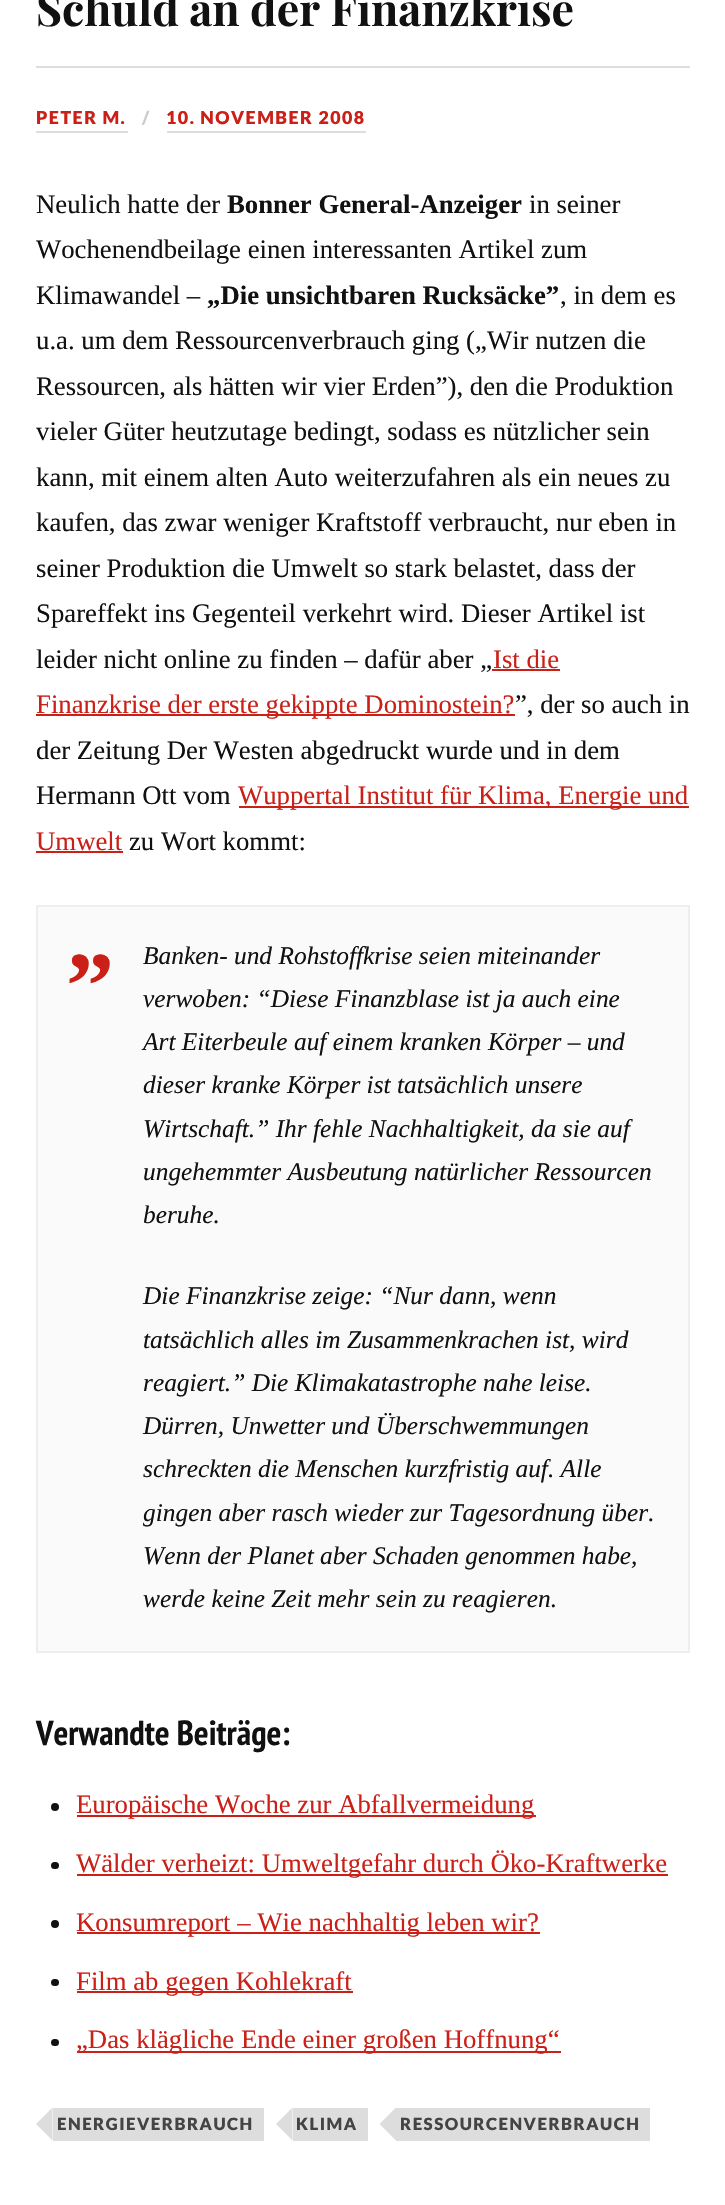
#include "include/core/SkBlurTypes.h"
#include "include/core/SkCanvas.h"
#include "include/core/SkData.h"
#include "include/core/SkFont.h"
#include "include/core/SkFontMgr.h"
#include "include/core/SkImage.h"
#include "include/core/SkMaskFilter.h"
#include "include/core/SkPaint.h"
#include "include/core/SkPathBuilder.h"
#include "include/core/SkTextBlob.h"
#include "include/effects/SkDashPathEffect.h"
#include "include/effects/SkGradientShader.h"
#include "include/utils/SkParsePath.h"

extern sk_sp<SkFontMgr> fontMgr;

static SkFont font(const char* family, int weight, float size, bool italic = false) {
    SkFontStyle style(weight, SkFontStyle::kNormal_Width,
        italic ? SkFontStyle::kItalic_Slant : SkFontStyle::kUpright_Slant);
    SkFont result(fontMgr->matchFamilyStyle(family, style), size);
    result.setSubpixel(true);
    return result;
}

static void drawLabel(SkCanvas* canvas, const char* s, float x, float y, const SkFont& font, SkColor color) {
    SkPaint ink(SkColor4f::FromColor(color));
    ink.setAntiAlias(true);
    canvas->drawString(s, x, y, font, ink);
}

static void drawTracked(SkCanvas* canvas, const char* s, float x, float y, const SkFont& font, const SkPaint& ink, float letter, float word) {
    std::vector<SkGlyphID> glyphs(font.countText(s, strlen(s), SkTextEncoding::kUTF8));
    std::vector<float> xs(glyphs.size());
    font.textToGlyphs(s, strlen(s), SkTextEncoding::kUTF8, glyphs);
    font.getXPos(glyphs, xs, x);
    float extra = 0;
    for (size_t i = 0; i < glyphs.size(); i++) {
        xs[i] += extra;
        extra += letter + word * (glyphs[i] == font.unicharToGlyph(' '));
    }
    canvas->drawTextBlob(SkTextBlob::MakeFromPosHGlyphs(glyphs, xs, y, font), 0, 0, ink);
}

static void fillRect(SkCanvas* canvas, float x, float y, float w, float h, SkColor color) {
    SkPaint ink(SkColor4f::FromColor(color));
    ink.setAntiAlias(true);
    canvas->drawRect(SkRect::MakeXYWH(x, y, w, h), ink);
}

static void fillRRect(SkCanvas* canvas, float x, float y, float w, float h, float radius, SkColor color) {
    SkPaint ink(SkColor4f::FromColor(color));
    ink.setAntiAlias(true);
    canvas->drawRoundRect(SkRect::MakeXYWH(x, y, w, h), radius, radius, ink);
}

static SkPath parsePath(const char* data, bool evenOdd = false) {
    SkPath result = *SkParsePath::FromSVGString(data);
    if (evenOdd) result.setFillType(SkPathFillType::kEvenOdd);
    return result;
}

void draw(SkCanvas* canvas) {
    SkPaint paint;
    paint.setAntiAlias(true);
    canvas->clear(0xFFFFFFFF);
    SkFont font1 = font("Playfair Display", 700, 44.6f);
    drawLabel(canvas, "Schuld an der Finanzkrise", 36, 26, font1, 0xFF111111);
    fillRect(canvas, 36, 66, 654, 2, 0xFFDDDDDD);
    SkFont font2 = font("Lato", 900, 17.8f);
    paint.setColor(0xFFCA2017);
    drawTracked(canvas, "PETER M.", 36, 124, font2, paint, 1.5f, 0);
    fillRect(canvas, 36, 131, 92, 2, 0xFFDDDDDD);
    paint.setColor(0xFFCCCCCC);
    drawTracked(canvas, "/", 142, 124, font2, paint, 1.5f, 0);
    paint.setColor(0xFFCA2017);
    drawTracked(canvas, "10. NOVEMBER 2008", 166, 124, font2, paint, 1.5f, 0);
    fillRect(canvas, 167, 131, 199, 2, 0xFFDDDDDD);
    SkFont font3 = font("Liberation Serif", 400, 26.75f);
    drawLabel(canvas, "Neulich hatte der", 36, 213, font3, 0xFF111111);
    SkFont font4 = font("Liberation Serif", 700, 26.75f);
    drawLabel(canvas, "Bonner General-Anzeiger", 227, 213, font4, 0xFF111111);
    drawLabel(canvas, "in seiner", 529, 213, font3, 0xFF111111);
    drawLabel(canvas, "Wochenendbeilage einen interessanten Artikel zum", 36, 258, font3, 0xFF111111);
    drawLabel(canvas, "Klimawandel –", 36, 304, font3, 0xFF111111);
    drawLabel(canvas, "„Die unsichtbaren Rucksäcke”", 207, 304, font4, 0xFF111111);
    drawLabel(canvas, ", in dem es", 560, 304, font3, 0xFF111111);
    drawLabel(canvas, "u.a. um dem Ressourcenverbrauch ging („Wir nutzen die", 36, 349, font3, 0xFF111111);
    drawLabel(canvas, "Ressourcen, als hätten wir vier Erden”), den die Produktion", 36, 395, font3, 0xFF111111);
    drawLabel(canvas, "vieler Güter heutzutage bedingt, sodass es nützlicher sein", 36, 440, font3, 0xFF111111);
    drawLabel(canvas, "kann, mit einem alten Auto weiterzufahren als ein neues zu", 36, 486, font3, 0xFF111111);
    drawLabel(canvas, "kaufen, das zwar weniger Kraftstoff verbraucht, nur eben in", 36, 531, font3, 0xFF111111);
    drawLabel(canvas, "seiner Produktion die Umwelt so stark belastet, dass der", 36, 577, font3, 0xFF111111);
    drawLabel(canvas, "Spareffekt ins Gegenteil verkehrt wird. Dieser Artikel ist", 36, 622, font3, 0xFF111111);
    drawLabel(canvas, "leider nicht online zu finden – dafür aber „", 36, 668, font3, 0xFF111111);
    drawLabel(canvas, "Ist die", 493, 668, font3, 0xFFCA2017);
    fillRect(canvas, 492, 669, 68, 2, 0xFFCA2017);
    fillRect(canvas, 36, 714, 479, 2, 0xFFCA2017);
    drawLabel(canvas, "Finanzkrise der erste gekippte Dominostein?", 36, 713, font3, 0xFFCA2017);
    drawLabel(canvas, "”, der so auch in", 515, 713, font3, 0xFF111111);
    drawLabel(canvas, "der Zeitung Der Westen abgedruckt wurde und in dem", 36, 759, font3, 0xFF111111);
    drawLabel(canvas, "Hermann Ott vom", 36, 804, font3, 0xFF111111);
    fillRect(canvas, 239, 806, 450, 2, 0xFFCA2017);
    drawLabel(canvas, "Wuppertal Institut für Klima, Energie und", 238, 804, font3, 0xFFCA2017);
    drawLabel(canvas, "Umwelt", 36, 850, font3, 0xFFCA2017);
    fillRect(canvas, 36, 851, 87, 2, 0xFFCA2017);
    drawLabel(canvas, "zu Wort kommt:", 129, 850, font3, 0xFF111111);
    paint.setColor(0xFFFAFAFA);
    canvas->drawRect(SkRect::MakeXYWH(37, 906, 652, 746), paint);
    paint.setStroke(true);
    paint.setStrokeWidth(2);
    paint.setColor(0xFFEEEEEE);
    canvas->drawRect(SkRect::MakeXYWH(37, 906, 652, 746), paint);
    SkFont font5 = font("Liberation Serif", 700, 96);
    drawLabel(canvas, "”", 66, 1018, font5, 0xFFCA2017);
    SkFont font6 = font("Liberation Serif", 400, 25.4f, true);
    drawLabel(canvas, "Banken- und Rohstoffkrise seien miteinander", 143, 964, font6, 0xFF111111);
    drawLabel(canvas, "verwoben: “Diese Finanzblase ist ja auch eine", 143, 1007, font6, 0xFF111111);
    drawLabel(canvas, "Art Eiterbeule auf einem kranken Körper – und", 143, 1050, font6, 0xFF111111);
    drawLabel(canvas, "dieser kranke Körper ist tatsächlich unsere", 143, 1093, font6, 0xFF111111);
    drawLabel(canvas, "Wirtschaft.” Ihr fehle Nachhaltigkeit, da sie auf", 143, 1137, font6, 0xFF111111);
    drawLabel(canvas, "ungehemmter Ausbeutung natürlicher Ressourcen", 143, 1180, font6, 0xFF111111);
    drawLabel(canvas, "beruhe.", 143, 1223, font6, 0xFF111111);
    drawLabel(canvas, "Die Finanzkrise zeige: “Nur dann, wenn", 143, 1304, font6, 0xFF111111);
    drawLabel(canvas, "tatsächlich alles im Zusammenkrachen ist, wird", 143, 1348, font6, 0xFF111111);
    drawLabel(canvas, "reagiert.” Die Klimakatastrophe nahe leise.", 143, 1391, font6, 0xFF111111);
    drawLabel(canvas, "Dürren, Unwetter und Überschwemmungen", 143, 1434, font6, 0xFF111111);
    drawLabel(canvas, "schreckten die Menschen kurzfristig auf. Alle", 143, 1477, font6, 0xFF111111);
    drawLabel(canvas, "gingen aber rasch wieder zur Tagesordnung über.", 143, 1521, font6, 0xFF111111);
    drawLabel(canvas, "Wenn der Planet aber Schaden genommen habe,", 143, 1564, font6, 0xFF111111);
    drawLabel(canvas, "werde keine Zeit mehr sein zu reagieren.", 143, 1607, font6, 0xFF111111);
    SkFont font7 = font("PT Sans Narrow", 700, 34.75f);
    drawLabel(canvas, "Verwandte Beiträge:", 36, 1745, font7, 0xFF111111);
    paint.setStroke(false);
    paint.setColor(0xFF111111);
    canvas->drawCircle(55, 1807, 4, paint);
    fillRect(canvas, 77, 1815, 459, 2, 0xFFCA2017);
    drawLabel(canvas, "Europäische Woche zur Abfallvermeidung", 76, 1813, font3, 0xFFCA2017);
    fillRRect(canvas, 51, 1862, 8, 7, 3.5f, 0xFF111111);
    fillRect(canvas, 77, 1874, 591, 2, 0xFFCA2017);
    drawLabel(canvas, "Wälder verheizt: Umweltgefahr durch Öko-Kraftwerke", 76, 1872, font3, 0xFFCA2017);
    canvas->drawCircle(55, 1924, 4, paint);
    fillRect(canvas, 77, 1932, 463, 2, 0xFFCA2017);
    drawLabel(canvas, "Konsumreport – Wie nachhaltig leben wir?", 76, 1931, font3, 0xFFCA2017);
    fillRRect(canvas, 51, 1979, 8, 7, 3.5f, 0xFF111111);
    fillRect(canvas, 77, 1991, 276, 2, 0xFFCA2017);
    drawLabel(canvas, "Film ab gegen Kohlekraft", 76, 1990, font3, 0xFFCA2017);
    fillRRect(canvas, 51, 2039, 8, 7, 3.5f, 0xFF111111);
    fillRect(canvas, 77, 2051, 484, 2, 0xFFCA2017);
    drawLabel(canvas, "„Das klägliche Ende einer großen Hoffnung“", 76, 2048, font3, 0xFFCA2017);
    fillRect(canvas, 53, 2108, 211, 33, 0xFFDDDDDD);
    paint.setColor(0xFFDDDDDD);
    canvas->drawPath(parsePath("M52.5 2107.5V2140.5L36 2124Z"), paint);
    SkFont font8 = font("Lato", 900, 16.75f);
    paint.setColor(0xFF444444);
    drawTracked(canvas, "ENERGIEVERBRAUCH", 57, 2130, font8, paint, 1.5f, 0);
    fillRect(canvas, 293, 2108, 75, 33, 0xFFDDDDDD);
    paint.setColor(0xFFDDDDDD);
    canvas->drawPath(parsePath("M292.5 2107.5V2140.5L276 2124Z"), paint);
    paint.setColor(0xFF444444);
    drawTracked(canvas, "KLIMA", 296, 2130, font8, paint, 1.5f, 0);
    fillRect(canvas, 396, 2108, 254, 33, 0xFFDDDDDD);
    paint.setColor(0xFFDDDDDD);
    canvas->drawPath(parsePath("M396 2107.5V2140.5L379.5 2124Z"), paint);
    paint.setColor(0xFF444444);
    drawTracked(canvas, "RESSOURCENVERBRAUCH", 400, 2130, font8, paint, 1.5f, 0);
}
